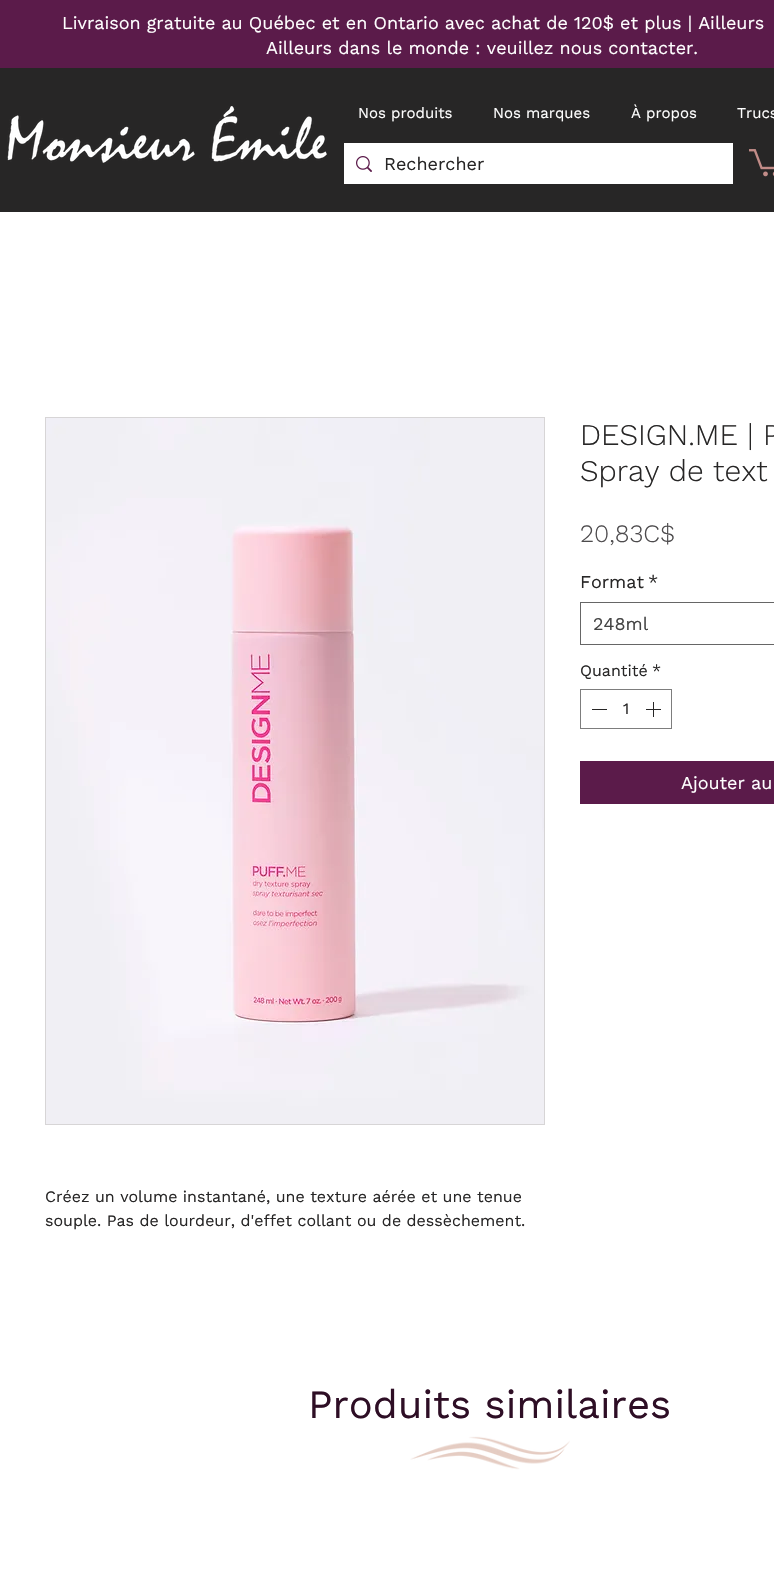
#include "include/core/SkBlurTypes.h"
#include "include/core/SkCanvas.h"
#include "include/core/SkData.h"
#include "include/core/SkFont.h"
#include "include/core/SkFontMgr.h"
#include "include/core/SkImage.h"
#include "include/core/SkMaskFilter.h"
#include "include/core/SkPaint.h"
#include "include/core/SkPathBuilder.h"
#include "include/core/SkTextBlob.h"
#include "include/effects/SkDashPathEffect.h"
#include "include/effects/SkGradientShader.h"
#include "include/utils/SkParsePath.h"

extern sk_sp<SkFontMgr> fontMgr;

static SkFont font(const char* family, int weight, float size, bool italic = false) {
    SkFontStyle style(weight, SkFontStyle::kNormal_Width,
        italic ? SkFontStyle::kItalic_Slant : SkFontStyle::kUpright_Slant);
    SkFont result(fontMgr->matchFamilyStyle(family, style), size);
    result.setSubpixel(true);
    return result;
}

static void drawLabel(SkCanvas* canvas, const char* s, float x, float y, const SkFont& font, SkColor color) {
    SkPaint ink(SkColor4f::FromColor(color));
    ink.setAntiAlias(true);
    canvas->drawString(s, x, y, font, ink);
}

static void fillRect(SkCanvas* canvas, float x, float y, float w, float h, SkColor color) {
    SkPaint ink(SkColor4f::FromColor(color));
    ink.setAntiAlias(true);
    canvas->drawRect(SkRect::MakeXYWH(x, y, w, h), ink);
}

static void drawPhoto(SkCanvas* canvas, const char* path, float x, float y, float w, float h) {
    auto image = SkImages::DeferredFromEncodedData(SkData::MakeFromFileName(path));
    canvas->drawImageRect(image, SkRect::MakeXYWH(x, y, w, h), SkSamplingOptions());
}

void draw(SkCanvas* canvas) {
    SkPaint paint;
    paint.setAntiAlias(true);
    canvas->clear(0xFFFFFFFF);
    fillRect(canvas, 0, 0, 774, 68, 0xFF5B1B4A);
    SkFont font1 = font("Work Sans", 400, 18);
    drawLabel(canvas, "Livraison gratuite au Québec et en Ontario avec achat de 120$ et plus | Ailleurs", 62, 29, font1, 0xFFFFFFFF);
    drawLabel(canvas, "Ailleurs dans le monde : veuillez nous contacter.", 266, 54, font1, 0xFFFFFFFF);
    fillRect(canvas, 0, 68, 774, 144, 0xFF272626);
    drawPhoto(canvas, "assets/img1.png", 7, 106, 320, 57);
    SkFont font2 = font("Work Sans", 400, 15);
    drawLabel(canvas, "Nos produits", 358, 118, font2, 0xFFFFFFFF);
    drawLabel(canvas, "Nos marques", 493, 118, font2, 0xFFFFFFFF);
    drawLabel(canvas, "À propos", 631, 118, font2, 0xFFFFFFFF);
    drawLabel(canvas, "Trucs", 737, 118, font2, 0xFFFFFFFF);
    fillRect(canvas, 344, 143, 389, 41, 0xFFFFFFFF);
    drawPhoto(canvas, "assets/img2.png", 356, 156, 16, 16);
    drawLabel(canvas, "Rechercher", 384, 170, font1, 0xFF272626);
    drawPhoto(canvas, "assets/img3.png", 749, 149, 25, 28);
    SkFont font3 = font("Work Sans", 300, 30);
    drawLabel(canvas, "DESIGN.ME | P", 580, 445, font3, 0xFF272626);
    drawLabel(canvas, "Spray de text", 580, 481, font3, 0xFF272626);
    SkFont font4 = font("Work Sans", 300, 25);
    drawLabel(canvas, "20,83C$", 580, 542, font4, 0xFF4D4B4D);
    drawLabel(canvas, "Format", 580, 588, font1, 0xFF272626);
    drawLabel(canvas, "*", 648, 588, font1, 0xFF272626);
    paint.setStroke(true);
    paint.setStrokeWidth(1);
    paint.setColor(0xFF666666);
    canvas->drawRect(SkRect::MakeXYWH(580.5f, 602.5f, 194, 42), paint);
    drawLabel(canvas, "248ml", 593, 630, font1, 0xFF444444);
    SkFont font5 = font("Work Sans", 400, 16);
    drawLabel(canvas, "Quantité", 580, 676, font5, 0xFF272626);
    drawLabel(canvas, "*", 652, 676, font5, 0xFF272626);
    paint.setColor(0xFF7D7D7D);
    canvas->drawRect(SkRect::MakeXYWH(580.5f, 689.5f, 91, 39), paint);
    fillRect(canvas, 592, 709, 15, 1, 0xFF272626);
    drawLabel(canvas, "1", 623, 714, font5, 0xFF272626);
    drawPhoto(canvas, "assets/img4.png", 646, 702, 15, 15);
    fillRect(canvas, 580, 761, 194, 43, 0xFF5B1B4A);
    drawLabel(canvas, "Ajouter au", 681, 789, font1, 0xFFFFFFFF);
    paint.setColor(0xFFD7D5D6);
    canvas->drawRect(SkRect::MakeXYWH(45.5f, 417.5f, 499, 707), paint);
    drawPhoto(canvas, "assets/img5.png", 46, 418, 498, 706);
    drawLabel(canvas, "Créez un volume instantané, une texture aérée et une tenue", 45, 1202, font5, 0xFF272626);
    drawLabel(canvas, "souple. Pas de lourdeur, d'effet collant ou de dessèchement.", 45, 1226, font5, 0xFF272626);
    SkFont font6 = font("Work Sans", 400, 40);
    drawLabel(canvas, "Produits similaires", 308, 1418, font6, 0xFF2E0E25);
    drawPhoto(canvas, "assets/img6.png", 410, 1436, 160, 34);
}
